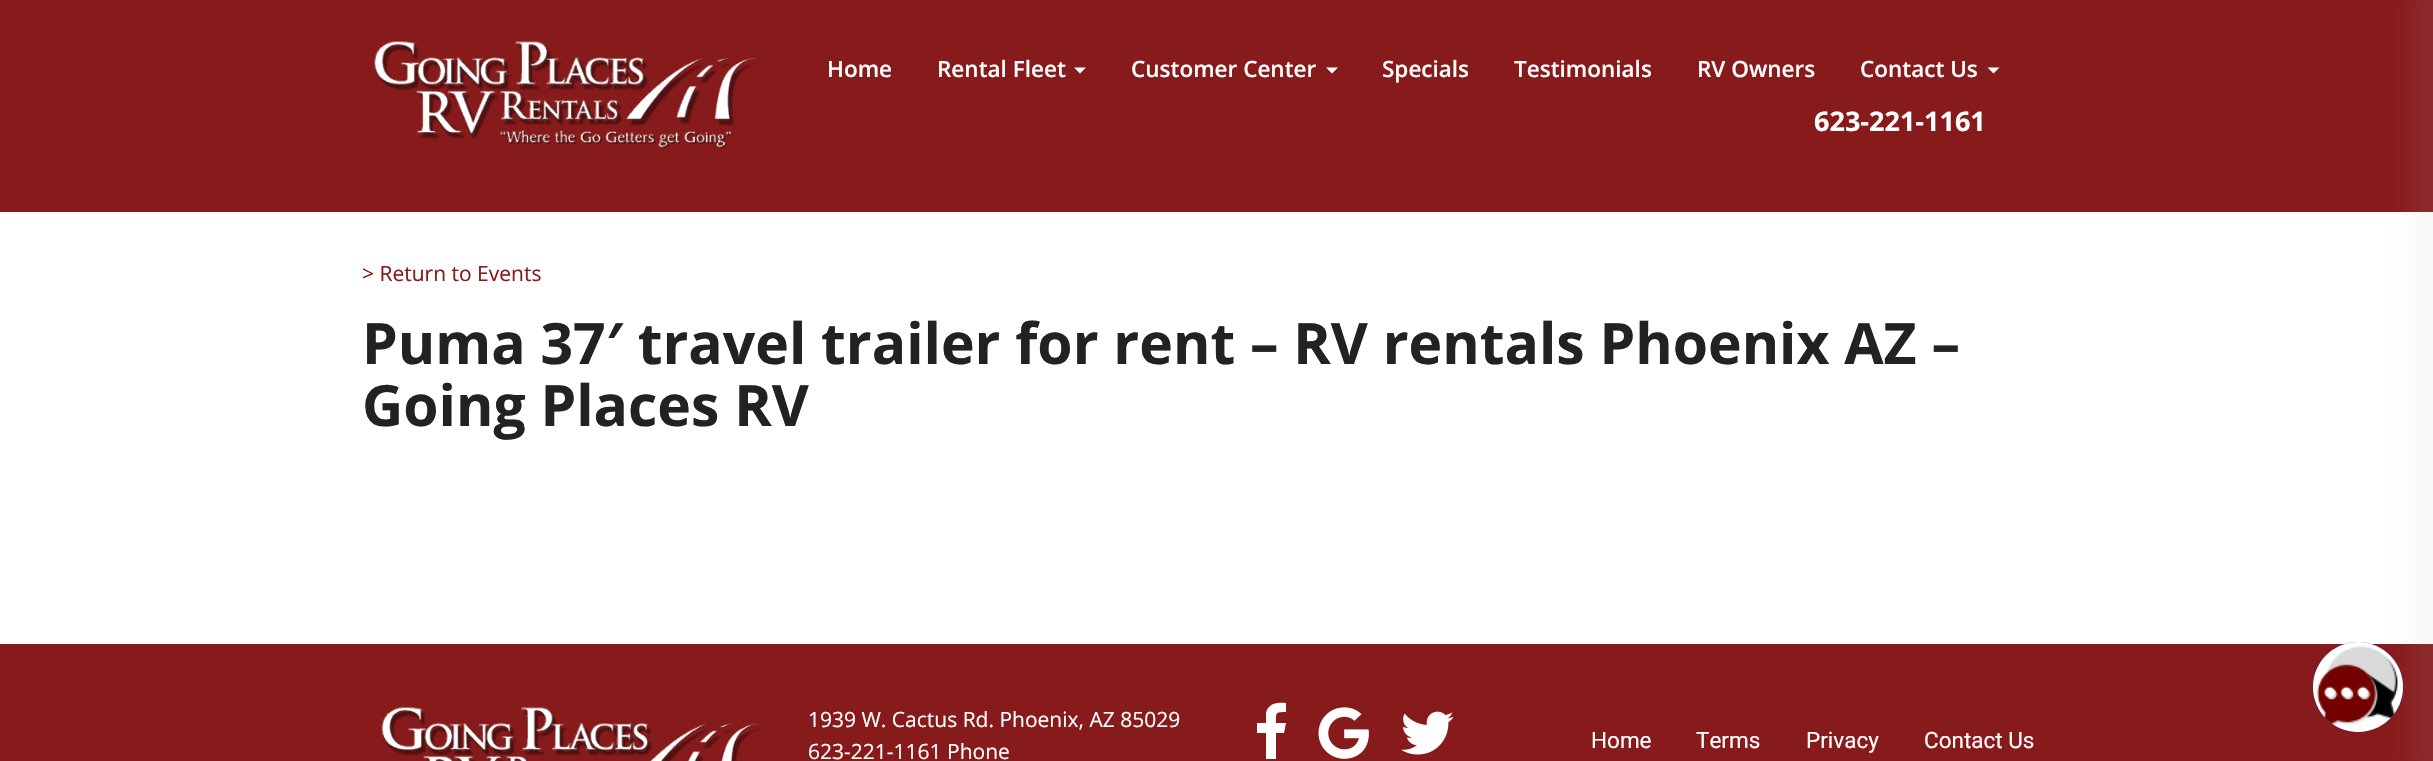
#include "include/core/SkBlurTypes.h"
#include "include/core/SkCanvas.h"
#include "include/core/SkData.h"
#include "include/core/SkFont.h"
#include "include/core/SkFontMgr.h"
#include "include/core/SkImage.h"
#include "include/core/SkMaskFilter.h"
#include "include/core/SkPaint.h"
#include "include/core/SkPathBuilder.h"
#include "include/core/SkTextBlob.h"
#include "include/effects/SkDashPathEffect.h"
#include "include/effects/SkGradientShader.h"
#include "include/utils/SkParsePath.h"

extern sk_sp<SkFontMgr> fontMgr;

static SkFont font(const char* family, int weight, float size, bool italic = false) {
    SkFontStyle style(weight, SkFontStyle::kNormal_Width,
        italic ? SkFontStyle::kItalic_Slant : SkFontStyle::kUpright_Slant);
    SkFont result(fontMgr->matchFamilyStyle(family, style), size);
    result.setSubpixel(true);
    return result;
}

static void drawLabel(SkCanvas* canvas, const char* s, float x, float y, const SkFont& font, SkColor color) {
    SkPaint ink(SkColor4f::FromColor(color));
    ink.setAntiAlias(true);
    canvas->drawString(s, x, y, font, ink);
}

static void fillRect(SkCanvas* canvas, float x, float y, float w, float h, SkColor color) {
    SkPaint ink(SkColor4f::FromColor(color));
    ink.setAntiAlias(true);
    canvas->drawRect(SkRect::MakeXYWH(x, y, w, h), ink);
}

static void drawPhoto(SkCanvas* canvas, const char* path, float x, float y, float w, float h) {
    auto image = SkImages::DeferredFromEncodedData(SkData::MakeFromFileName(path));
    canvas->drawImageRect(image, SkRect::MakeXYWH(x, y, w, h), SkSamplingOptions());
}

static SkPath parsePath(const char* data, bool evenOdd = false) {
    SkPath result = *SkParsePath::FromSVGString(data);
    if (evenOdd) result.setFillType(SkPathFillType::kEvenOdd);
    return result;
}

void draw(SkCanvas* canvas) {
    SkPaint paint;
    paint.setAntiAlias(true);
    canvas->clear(0xFFFFFFFF);
    fillRect(canvas, 0, 0, 2433, 212, 0xFF871A1B);
    drawPhoto(canvas, "assets/img1.png", 374, 41, 385, 108);
    SkFont font1 = font("Open Sans", 600, 22.5f);
    drawLabel(canvas, "Home", 827, 77, font1, 0xFFFFFFFF);
    drawLabel(canvas, "Rental Fleet", 937, 77, font1, 0xFFFFFFFF);
    paint.setColor(0xFFFFFFFF);
    canvas->drawPath(parsePath("M1074 67.5H1086L1080 73.5Z"), paint);
    drawLabel(canvas, "Customer Center", 1131, 77, font1, 0xFFFFFFFF);
    canvas->drawPath(parsePath("M1326 67.5H1338L1332 73.5Z"), paint);
    drawLabel(canvas, "Specials", 1382, 77, font1, 0xFFFFFFFF);
    drawLabel(canvas, "Testimonials", 1514, 77, font1, 0xFFFFFFFF);
    drawLabel(canvas, "RV Owners", 1697, 77, font1, 0xFFFFFFFF);
    drawLabel(canvas, "Contact Us", 1860, 77, font1, 0xFFFFFFFF);
    canvas->drawPath(parsePath("M1987.5 67.5H1999.5L1993.5 73.5Z"), paint);
    SkFont font2 = font("Open Sans", 700, 27);
    drawLabel(canvas, "623-221-1161", 1814, 131, font2, 0xFFFFFFFF);
    SkFont font3 = font("Open Sans", 400, 21);
    drawLabel(canvas, "> Return to Events", 362, 281, font3, 0xFF871A1B);
    SkFont font4 = font("Open Sans", 700, 57);
    drawLabel(canvas, "Puma 37′ travel trailer for rent – RV rentals Phoenix AZ –", 362, 364, font4, 0xFF222222);
    drawLabel(canvas, "Going Places RV", 362, 426, font4, 0xFF222222);
    fillRect(canvas, 0, 644, 2433, 117, 0xFF871A1B);
    drawPhoto(canvas, "assets/img2.png", 381, 707, 381, 54);
    drawLabel(canvas, "1939 W. Cactus Rd. Phoenix, AZ 85029", 808, 727, font3, 0xFFFFFFFF);
    drawLabel(canvas, "623-221-1161 Phone", 808, 759, font3, 0xFFFFFFFF);
    canvas->drawPath(parsePath("M1286 703C1278 702 1268 703 1266 713V723H1257V733H1266V759H1276V733H1284L1286 723H1276C1276 713 1275 712 1286 712Z"), paint);
    drawPhoto(canvas, "assets/img3.png", 1318, 707, 51, 52);
    drawPhoto(canvas, "assets/img4.png", 1401, 711, 53, 44);
    SkFont font5 = font("Roboto", 400, 22.5f);
    drawLabel(canvas, "Home", 1591, 748, font5, 0xFFFFFFFF);
    drawLabel(canvas, "Terms", 1696, 748, font5, 0xFFFFFFFF);
    drawLabel(canvas, "Privacy", 1806, 748, font5, 0xFFFFFFFF);
    drawLabel(canvas, "Contact Us", 1924, 748, font5, 0xFFFFFFFF);
    paint.setColor(0xFF1A6FE6);
    canvas->drawCircle(2358, 687, 45, paint);
    drawPhoto(canvas, "assets/img5.png", 2313, 642, 90, 90);
    paint.setColor(0x26BBBBBB);
    paint.setMaskFilter(SkMaskFilter::MakeBlur(kNormal_SkBlurStyle, 15));
    canvas->drawRect(SkRect::MakeXYWH(2418, -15, 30, 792), paint);
    paint.setMaskFilter(nullptr);
}
